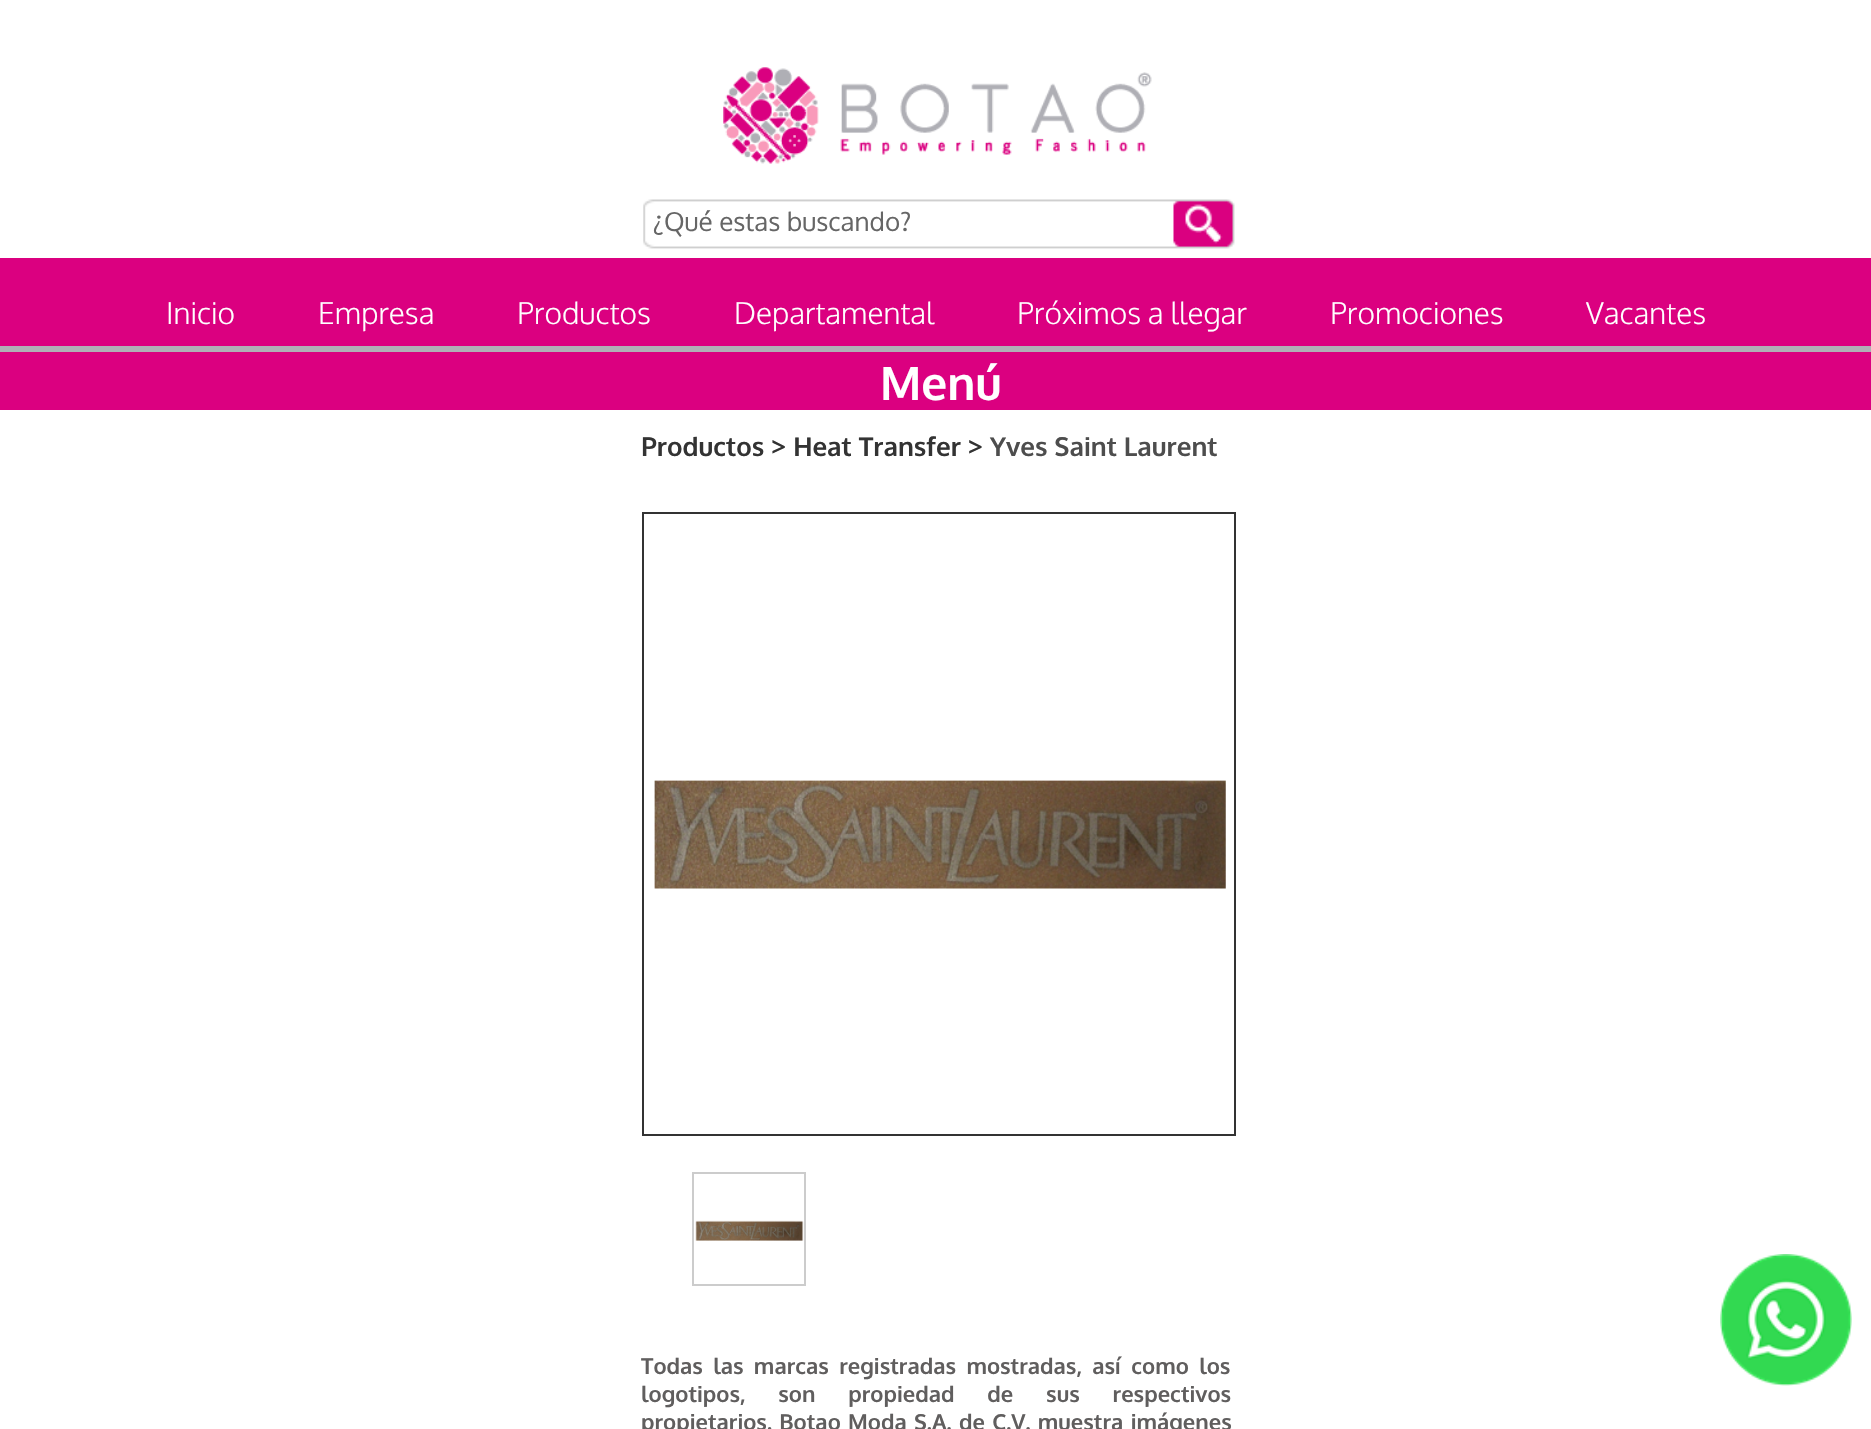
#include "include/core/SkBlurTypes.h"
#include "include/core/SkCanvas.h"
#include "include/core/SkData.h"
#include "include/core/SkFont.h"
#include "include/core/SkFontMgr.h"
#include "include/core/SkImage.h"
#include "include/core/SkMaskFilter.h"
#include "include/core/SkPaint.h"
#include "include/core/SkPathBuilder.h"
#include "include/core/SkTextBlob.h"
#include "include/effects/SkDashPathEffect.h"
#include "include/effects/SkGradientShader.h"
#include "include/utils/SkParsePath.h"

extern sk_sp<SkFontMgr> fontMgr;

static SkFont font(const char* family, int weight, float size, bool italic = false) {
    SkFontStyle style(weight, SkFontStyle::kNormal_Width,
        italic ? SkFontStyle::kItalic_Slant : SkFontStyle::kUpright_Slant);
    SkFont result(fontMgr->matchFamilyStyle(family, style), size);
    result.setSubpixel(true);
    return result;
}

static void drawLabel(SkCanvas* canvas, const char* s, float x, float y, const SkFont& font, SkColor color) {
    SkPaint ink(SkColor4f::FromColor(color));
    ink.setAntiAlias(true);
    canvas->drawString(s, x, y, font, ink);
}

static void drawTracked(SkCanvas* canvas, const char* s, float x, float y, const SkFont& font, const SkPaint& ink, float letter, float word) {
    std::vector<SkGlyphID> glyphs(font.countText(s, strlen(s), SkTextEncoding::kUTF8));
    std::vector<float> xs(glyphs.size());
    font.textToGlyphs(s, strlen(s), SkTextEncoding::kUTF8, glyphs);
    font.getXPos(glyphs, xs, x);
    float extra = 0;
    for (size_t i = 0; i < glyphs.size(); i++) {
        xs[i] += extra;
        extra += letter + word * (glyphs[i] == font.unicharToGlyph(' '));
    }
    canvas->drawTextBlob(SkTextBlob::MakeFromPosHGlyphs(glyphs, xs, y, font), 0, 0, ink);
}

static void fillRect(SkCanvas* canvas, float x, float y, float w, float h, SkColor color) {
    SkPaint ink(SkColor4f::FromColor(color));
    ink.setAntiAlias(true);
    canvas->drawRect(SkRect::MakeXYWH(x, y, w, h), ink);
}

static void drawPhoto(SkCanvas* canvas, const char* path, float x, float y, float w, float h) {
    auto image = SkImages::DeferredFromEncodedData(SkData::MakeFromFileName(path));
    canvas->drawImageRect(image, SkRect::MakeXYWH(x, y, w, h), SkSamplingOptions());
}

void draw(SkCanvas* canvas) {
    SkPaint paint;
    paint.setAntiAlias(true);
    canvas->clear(0xFFFFFFFF);
    drawPhoto(canvas, "assets/img1.png", 723, 67, 429, 97);
    drawPhoto(canvas, "assets/img2.png", 643, 199, 592, 50);
    SkFont font1 = font("Oxygen", 400, 26);
    drawLabel(canvas, "¿Qué estas buscando?", 653, 231, font1, 0xFF666666);
    fillRect(canvas, 0, 258, 1871, 152, 0xFFDB0080);
    fillRect(canvas, 0, 346, 1871, 6, 0xFFB0B0B6);
    SkFont font2 = font("Oxygen", 300, 30);
    drawLabel(canvas, "Inicio", 166, 324, font2, 0xFFFFFFFF);
    drawLabel(canvas, "Empresa", 318, 324, font2, 0xFFFFFFFF);
    drawLabel(canvas, "Productos", 517, 324, font2, 0xFFFFFFFF);
    drawLabel(canvas, "Departamental", 734, 324, font2, 0xFFFFFFFF);
    drawLabel(canvas, "Próximos a llegar", 1017, 324, font2, 0xFFFFFFFF);
    drawLabel(canvas, "Promociones", 1330, 324, font2, 0xFFFFFFFF);
    drawLabel(canvas, "Vacantes", 1586, 324, font2, 0xFFFFFFFF);
    SkFont font3 = font("Oxygen", 700, 46);
    drawLabel(canvas, "Menú", 880, 400, font3, 0xFFFFFFFF);
    SkFont font4 = font("Oxygen", 700, 26);
    drawLabel(canvas, "Productos > Heat Transfer >", 641, 456, font4, 0xFF333333);
    drawLabel(canvas, "Yves Saint Laurent", 990, 456, font4, 0xFF4D4D4D);
    paint.setStroke(true);
    paint.setStrokeWidth(2);
    paint.setColor(0xFF333333);
    canvas->drawRect(SkRect::MakeXYWH(643, 513, 592, 622), paint);
    drawPhoto(canvas, "assets/img3.png", 654, 780, 572, 109);
    paint.setColor(0xFFCCCCCC);
    canvas->drawRect(SkRect::MakeXYWH(693, 1173, 112, 112), paint);
    drawPhoto(canvas, "assets/img4.png", 695, 1220, 109, 21);
    SkFont font5 = font("Oxygen", 700, 22);
    paint.setStroke(false);
    paint.setColor(0xFF605E5E);
    drawTracked(canvas, "Todas las marcas registradas mostradas, así como los", 641, 1374, font5, paint, 0, 4.5f);
    drawTracked(canvas, "logotipos, son propiedad de sus respectivos", 641, 1402, font5, paint, 0, 27);
    drawTracked(canvas, "propietarios. Botao Moda S.A. de C.V. muestra imágenes", 641, 1430, font5, paint, 0, 1.5f);
    drawPhoto(canvas, "assets/img5.png", 1720, 1254, 132, 132);
}
